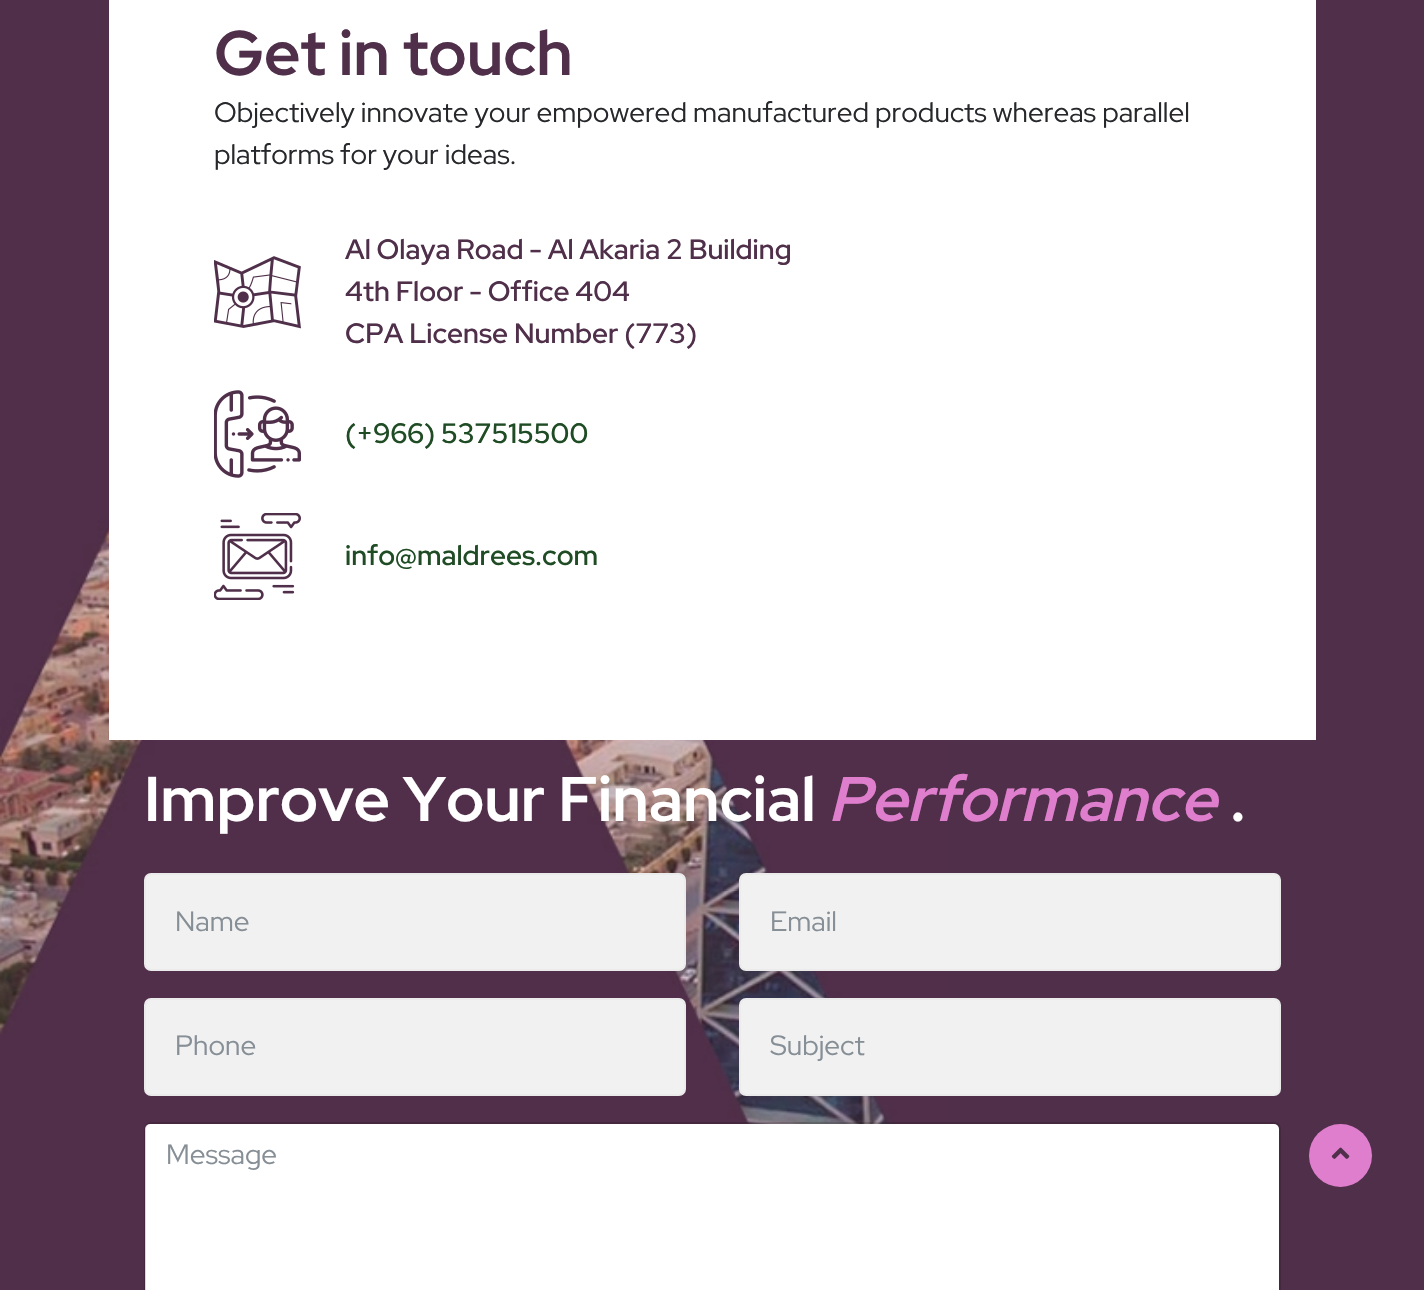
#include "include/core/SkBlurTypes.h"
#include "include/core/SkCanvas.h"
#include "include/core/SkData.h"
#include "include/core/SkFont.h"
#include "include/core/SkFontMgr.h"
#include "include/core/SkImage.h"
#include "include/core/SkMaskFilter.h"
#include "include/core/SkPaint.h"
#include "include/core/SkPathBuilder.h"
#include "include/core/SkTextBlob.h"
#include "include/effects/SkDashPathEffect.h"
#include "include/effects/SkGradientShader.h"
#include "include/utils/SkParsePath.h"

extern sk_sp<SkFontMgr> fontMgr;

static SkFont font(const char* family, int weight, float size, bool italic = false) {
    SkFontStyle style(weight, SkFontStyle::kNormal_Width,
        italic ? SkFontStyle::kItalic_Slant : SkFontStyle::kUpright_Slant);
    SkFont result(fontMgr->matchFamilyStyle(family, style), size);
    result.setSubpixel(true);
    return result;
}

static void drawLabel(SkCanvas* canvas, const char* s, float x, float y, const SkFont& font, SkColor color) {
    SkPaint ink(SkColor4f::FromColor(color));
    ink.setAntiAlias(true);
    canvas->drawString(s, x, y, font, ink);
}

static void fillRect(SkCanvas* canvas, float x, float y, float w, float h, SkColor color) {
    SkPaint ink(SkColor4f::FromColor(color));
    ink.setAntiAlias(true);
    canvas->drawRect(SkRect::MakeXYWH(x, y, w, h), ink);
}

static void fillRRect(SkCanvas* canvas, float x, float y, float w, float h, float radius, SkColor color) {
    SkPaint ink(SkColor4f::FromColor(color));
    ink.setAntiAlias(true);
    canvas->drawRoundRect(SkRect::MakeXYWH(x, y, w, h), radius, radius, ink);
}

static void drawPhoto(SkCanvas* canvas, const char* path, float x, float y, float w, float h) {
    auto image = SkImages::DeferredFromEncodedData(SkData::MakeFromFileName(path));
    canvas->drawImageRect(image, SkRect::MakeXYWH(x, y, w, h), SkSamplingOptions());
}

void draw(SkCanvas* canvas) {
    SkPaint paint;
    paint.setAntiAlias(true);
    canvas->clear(0xFF4F2F49);
    drawPhoto(canvas, "assets/img1.png", 0, 39, 948, 1213);
    fillRect(canvas, 109, 0, 1207, 740, 0xFFFFFFFF);
    SkFont font1 = font("Red Hat Display", 700, 63);
    drawLabel(canvas, "Get in touch", 214, 75, font1, 0xFF4F2F49);
    SkFont font2 = font("Red Hat Display", 400, 28);
    drawLabel(canvas, "Objectively innovate your empowered manufactured products whereas parallel", 214, 122, font2, 0xFF26282B);
    drawLabel(canvas, "platforms for your ideas.", 214, 164, font2, 0xFF26282B);
    drawPhoto(canvas, "assets/img2.png", 214, 256, 87, 73);
    SkFont font3 = font("Red Hat Display", 600, 28);
    drawLabel(canvas, "Al Olaya Road - Al Akaria 2 Building", 345, 259, font3, 0xFF4F2F49);
    drawLabel(canvas, "4th Floor - Office 404", 345, 301, font3, 0xFF4F2F49);
    drawLabel(canvas, "CPA License Number (773)", 345, 343, font3, 0xFF4F2F49);
    drawPhoto(canvas, "assets/img3.png", 214, 390, 87, 88);
    drawLabel(canvas, "(+966) 537515500", 345, 443, font3, 0xFF1F4C24);
    drawPhoto(canvas, "assets/img4.png", 214, 513, 87, 87);
    drawLabel(canvas, "info@maldrees.com", 345, 565, font3, 0xFF1F4C24);
    drawLabel(canvas, "Improve Your Financial", 144, 821, font1, 0xFFFFFFFF);
    SkFont font4 = font("Red Hat Display", 700, 63, true);
    drawLabel(canvas, "Performance", 828, 821, font4, 0xFFDF7ECD);
    drawLabel(canvas, ".", 1230, 821, font1, 0xFFFFFFFF);
    paint.setColor(0xFFF1F1F1);
    canvas->drawRoundRect(SkRect::MakeXYWH(145, 874, 540, 96), 6, 6, paint);
    paint.setStroke(true);
    paint.setStrokeWidth(2);
    paint.setColor(0xFFEBEBEB);
    canvas->drawRoundRect(SkRect::MakeXYWH(145, 874, 540, 96), 6, 6, paint);
    drawLabel(canvas, "Name", 175, 931, font2, 0xFF868E96);
    paint.setStroke(false);
    paint.setColor(0xFFF1F1F1);
    canvas->drawRoundRect(SkRect::MakeXYWH(740, 874, 540, 96), 6, 6, paint);
    paint.setStroke(true);
    paint.setColor(0xFFEBEBEB);
    canvas->drawRoundRect(SkRect::MakeXYWH(740, 874, 540, 96), 6, 6, paint);
    drawLabel(canvas, "Email", 770, 931, font2, 0xFF868E96);
    paint.setStroke(false);
    paint.setColor(0xFFF1F1F1);
    canvas->drawRoundRect(SkRect::MakeXYWH(145, 999, 540, 96), 6, 6, paint);
    paint.setStroke(true);
    paint.setColor(0xFFEBEBEB);
    canvas->drawRoundRect(SkRect::MakeXYWH(145, 999, 540, 96), 6, 6, paint);
    drawLabel(canvas, "Phone", 175, 1055, font2, 0xFF868E96);
    paint.setStroke(false);
    paint.setColor(0xFFF1F1F1);
    canvas->drawRoundRect(SkRect::MakeXYWH(740, 999, 540, 96), 6, 6, paint);
    paint.setStroke(true);
    paint.setColor(0xFFEBEBEB);
    canvas->drawRoundRect(SkRect::MakeXYWH(740, 999, 540, 96), 6, 6, paint);
    drawLabel(canvas, "Subject", 770, 1055, font2, 0xFF868E96);
    fillRRect(canvas, 145, 1124, 1134, 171, 5, 0xFFFFFFFF);
    paint.setColor(0x26000000);
    canvas->drawRoundRect(SkRect::MakeXYWH(145, 1123, 1135, 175), 6, 6, paint);
    drawLabel(canvas, "Message", 166, 1164, font2, 0xFF868E96);
    paint.setStroke(false);
    paint.setColor(0xFFDF7ECD);
    canvas->drawCircle(1340.5f, 1155.5f, 31.5f, paint);
    drawPhoto(canvas, "assets/img5.png", 1331, 1147, 19, 12);
}
